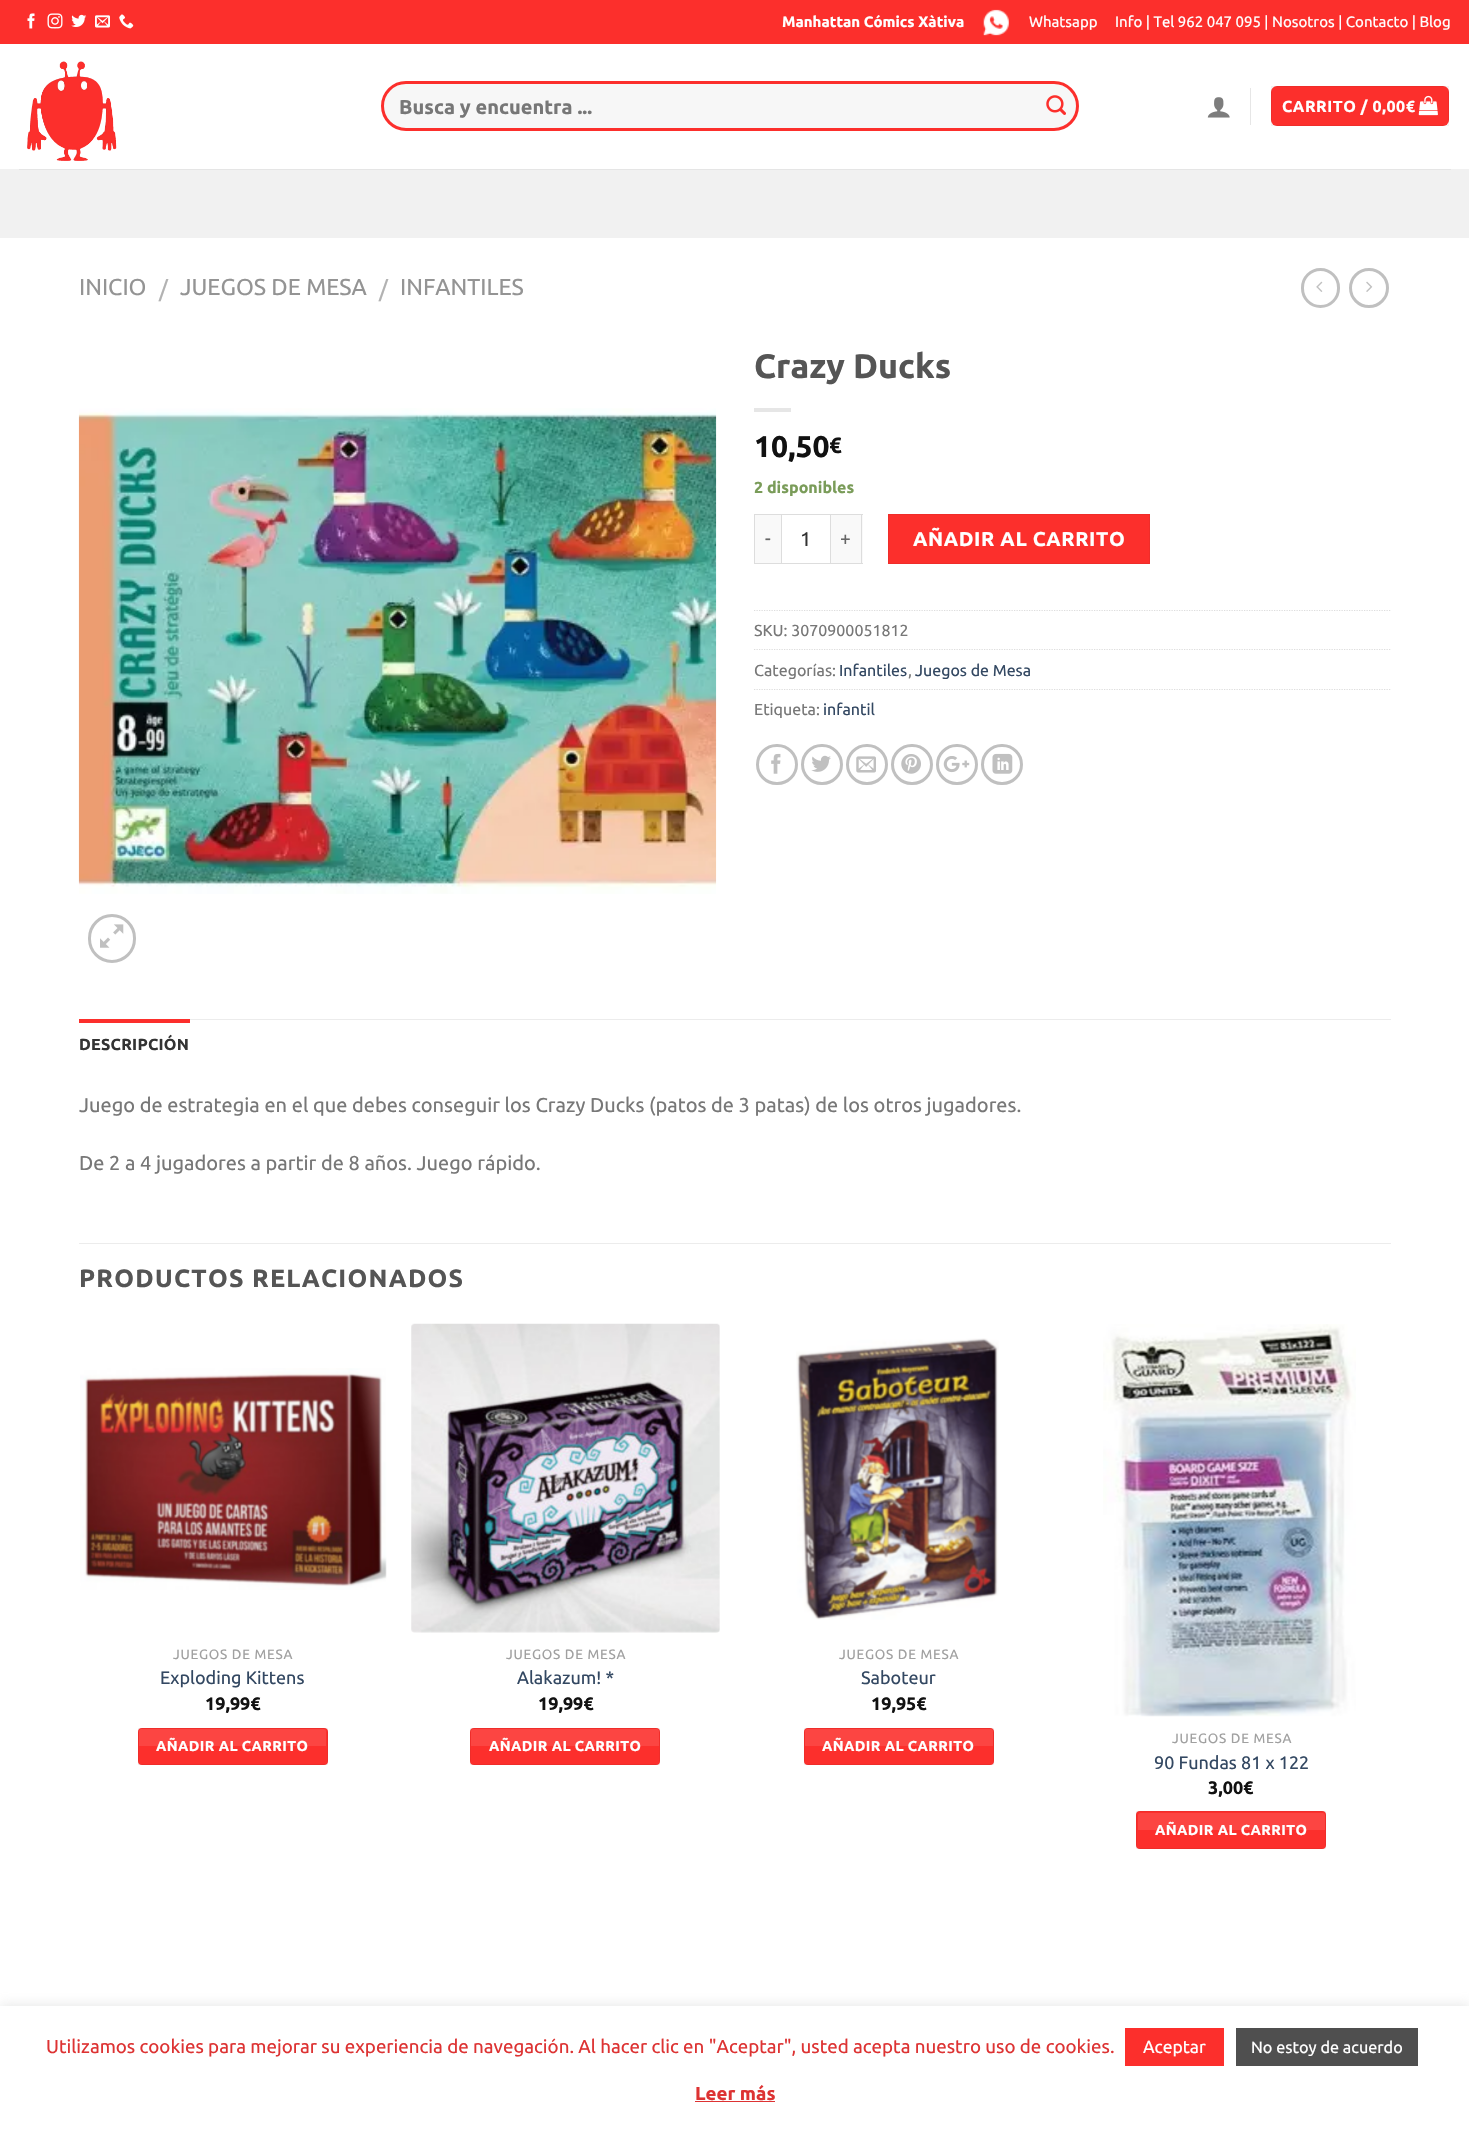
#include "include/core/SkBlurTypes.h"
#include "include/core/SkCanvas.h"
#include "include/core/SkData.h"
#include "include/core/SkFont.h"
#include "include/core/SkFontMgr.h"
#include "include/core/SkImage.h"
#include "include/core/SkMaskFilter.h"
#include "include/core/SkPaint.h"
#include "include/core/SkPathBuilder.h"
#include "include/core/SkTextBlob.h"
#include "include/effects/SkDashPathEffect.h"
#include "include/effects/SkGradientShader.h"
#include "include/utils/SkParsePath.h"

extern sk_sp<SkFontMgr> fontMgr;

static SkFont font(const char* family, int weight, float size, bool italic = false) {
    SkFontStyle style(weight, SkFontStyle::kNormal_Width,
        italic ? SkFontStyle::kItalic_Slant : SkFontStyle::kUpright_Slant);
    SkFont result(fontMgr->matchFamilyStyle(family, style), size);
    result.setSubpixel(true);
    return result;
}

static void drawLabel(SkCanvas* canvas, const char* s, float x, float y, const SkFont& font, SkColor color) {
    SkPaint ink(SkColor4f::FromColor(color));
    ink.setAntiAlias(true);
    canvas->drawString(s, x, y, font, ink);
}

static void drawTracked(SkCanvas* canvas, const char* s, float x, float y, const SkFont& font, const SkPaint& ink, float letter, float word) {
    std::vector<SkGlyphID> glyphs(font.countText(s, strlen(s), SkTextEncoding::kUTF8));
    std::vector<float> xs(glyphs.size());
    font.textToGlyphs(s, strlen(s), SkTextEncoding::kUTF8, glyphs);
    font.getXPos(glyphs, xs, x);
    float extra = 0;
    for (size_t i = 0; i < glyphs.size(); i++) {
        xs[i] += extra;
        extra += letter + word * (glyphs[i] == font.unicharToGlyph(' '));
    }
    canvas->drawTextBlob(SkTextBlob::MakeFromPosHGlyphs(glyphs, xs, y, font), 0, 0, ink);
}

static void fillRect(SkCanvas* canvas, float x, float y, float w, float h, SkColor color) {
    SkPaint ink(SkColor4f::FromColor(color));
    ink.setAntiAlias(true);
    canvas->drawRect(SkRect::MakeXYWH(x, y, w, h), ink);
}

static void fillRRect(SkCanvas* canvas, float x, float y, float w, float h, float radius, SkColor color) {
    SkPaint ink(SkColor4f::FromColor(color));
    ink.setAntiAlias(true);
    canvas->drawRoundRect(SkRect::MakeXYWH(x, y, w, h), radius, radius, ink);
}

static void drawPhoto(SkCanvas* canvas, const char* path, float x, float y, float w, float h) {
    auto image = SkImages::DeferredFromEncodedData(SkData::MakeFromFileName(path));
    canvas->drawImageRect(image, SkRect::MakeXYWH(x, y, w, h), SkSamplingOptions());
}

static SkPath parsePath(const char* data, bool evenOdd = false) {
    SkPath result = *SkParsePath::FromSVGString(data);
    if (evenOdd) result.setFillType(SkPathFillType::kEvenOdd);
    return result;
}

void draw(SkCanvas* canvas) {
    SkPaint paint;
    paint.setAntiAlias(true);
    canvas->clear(0xFFFFFFFF);
    fillRect(canvas, 0, 0, 1469, 44, 0xFFFC2F2C);
    drawPhoto(canvas, "assets/img1.png", 27, 13, 8, 16);
    drawPhoto(canvas, "assets/img2.png", 47, 13, 16, 16);
    drawPhoto(canvas, "assets/img3.png", 71, 14, 16, 13);
    drawPhoto(canvas, "assets/img4.png", 95, 15, 15, 13);
    drawPhoto(canvas, "assets/img5.png", 119, 14, 15, 15);
    SkFont font1 = font("Ubuntu", 700, 15);
    drawLabel(canvas, "Manhattan Cómics Xàtiva", 782, 27, font1, 0xFFFFFFFF);
    drawPhoto(canvas, "assets/img6.png", 983, 9, 26, 27);
    SkFont font2 = font("Ubuntu", 400, 15);
    drawLabel(canvas, "Whatsapp", 1029, 27, font2, 0xFFFFFFFF);
    drawLabel(canvas, "Info | Tel 962 047 095 | Nosotros | Contacto | Blog", 1115, 27, font2, 0xFFFFFFFF);
    drawPhoto(canvas, "assets/img7.png", 27, 61, 90, 100);
    paint.setColor(0xFFF7F7F7);
    canvas->drawRoundRect(SkRect::MakeXYWH(382.5f, 82.5f, 695, 47), 23.5f, 23.5f, paint);
    paint.setStroke(true);
    paint.setStrokeWidth(3);
    paint.setColor(0xFFFC2F2C);
    canvas->drawRoundRect(SkRect::MakeXYWH(382.5f, 82.5f, 695, 47), 23.5f, 23.5f, paint);
    SkFont font3 = font("Ubuntu", 700, 20);
    drawLabel(canvas, "Busca y encuentra ...", 399, 114, font3, 0xFF777777);
    drawPhoto(canvas, "assets/img8.png", 1046, 95, 20, 20);
    drawPhoto(canvas, "assets/img9.png", 1207, 97, 23, 21);
    fillRect(canvas, 1250, 88, 1, 37, 0xFFE6E6E6);
    fillRRect(canvas, 1271, 86, 178, 40, 6, 0xFFFC2F2C);
    paint.setStrokeWidth(1);
    paint.setColor(0x0D000000);
    canvas->drawRect(SkRect::MakeXYWH(1271.5f, 86.5f, 177, 39), paint);
    SkFont font4 = font("Ubuntu", 700, 16);
    paint.setStroke(false);
    paint.setColor(0xFFFFFFFF);
    drawTracked(canvas, "CARRITO / 0,00€", 1282, 112, font4, paint, 0.5f, 0);
    drawPhoto(canvas, "assets/img10.png", 1418, 95, 20, 21);
    fillRect(canvas, 0, 169, 1469, 69, 0xFFF1F1F1);
    fillRect(canvas, 19, 169, 1432, 1, 0xFFE5E5E5);
    SkFont font5 = font("Ubuntu", 400, 23);
    drawLabel(canvas, "INICIO", 79, 295, font5, 0xFF949494);
    drawLabel(canvas, "/", 159, 297, font5, 0xFFB2B2B2);
    drawLabel(canvas, "JUEGOS DE MESA", 180, 295, font5, 0xFF949494);
    drawLabel(canvas, "/", 379, 297, font5, 0xFFB2B2B2);
    drawLabel(canvas, "INFANTILES", 400, 295, font5, 0xFF949494);
    paint.setStroke(true);
    paint.setStrokeWidth(3);
    paint.setColor(0xFFC0C0C0);
    canvas->drawRoundRect(SkRect::MakeXYWH(1302.5f, 269.5f, 36, 37), 18, 18, paint);
    drawPhoto(canvas, "assets/img11.png", 1316, 281, 7, 11);
    canvas->drawCircle(1369, 288, 18.5f, paint);
    drawPhoto(canvas, "assets/img12.png", 1366, 281, 7, 11);
    drawPhoto(canvas, "assets/img13.png", 78, 408, 639, 486);
    canvas->drawRoundRect(SkRect::MakeXYWH(89.5f, 915.5f, 45, 46), 22.5f, 22.5f, paint);
    drawPhoto(canvas, "assets/img14.png", 100, 924, 24, 24);
    SkFont font6 = font("Ubuntu", 700, 34);
    drawLabel(canvas, "Crazy Ducks", 754, 378, font6, 0xFF555555);
    fillRect(canvas, 754, 408, 37, 4, 0xFFE6E6E6);
    SkFont font7 = font("Ubuntu", 700, 30);
    drawLabel(canvas, "10,50", 754, 457, font7, 0xFF111111);
    SkFont font8 = font("Ubuntu", 700, 22);
    drawLabel(canvas, "€", 829, 453, font8, 0xFF111111);
    drawLabel(canvas, "2 disponibles", 754, 493, font4, 0xFF7A9C59);
    fillRect(canvas, 755, 515, 26, 48, 0xFFF9F9F9);
    fillRect(canvas, 754, 514, 27, 1, 0xFFDDDDDD);
    fillRect(canvas, 754, 563, 27, 1, 0xFFDDDDDD);
    fillRect(canvas, 754, 514, 1, 50, 0xFFDDDDDD);
    SkFont font9 = font("Ubuntu", 400, 19);
    paint.setStroke(false);
    paint.setColor(0xFF666666);
    drawTracked(canvas, "-", 765, 545, font9, paint, 1, 0);
    paint.setStroke(true);
    paint.setStrokeWidth(1);
    paint.setColor(0xFFDDDDDD);
    canvas->drawRect(SkRect::MakeXYWH(781.5f, 514.5f, 49, 49), paint);
    SkFont font10 = font("Ubuntu", 400, 20);
    drawLabel(canvas, "1", 800, 546, font10, 0xFF333333);
    fillRect(canvas, 831, 515, 32, 48, 0xFFF9F9F9);
    fillRect(canvas, 831, 514, 32, 1, 0xFFDDDDDD);
    fillRect(canvas, 861, 514, 1, 50, 0xFFDDDDDD);
    fillRect(canvas, 831, 563, 32, 1, 0xFFDDDDDD);
    paint.setStroke(false);
    paint.setColor(0xFF666666);
    drawTracked(canvas, "+", 840, 545, font9, paint, 1, 0);
    paint.setColor(0xFFFC2F2C);
    canvas->drawRect(SkRect::MakeXYWH(888.5f, 514.5f, 261, 49), paint);
    paint.setStroke(true);
    paint.setColor(0xFFEF2D2A);
    canvas->drawRect(SkRect::MakeXYWH(888.5f, 514.5f, 261, 49), paint);
    paint.setStroke(false);
    paint.setColor(0xFFFFFFFF);
    drawTracked(canvas, "AÑADIR AL CARRITO", 913, 546, font3, paint, 0.6f, 0);
    paint.setStroke(true);
    paint.setStrokeWidth(1.2f);
    paint.setColor(0xFFDDDDDD);
    paint.setPathEffect(SkDashPathEffect::Make({{1.25f, 1.25f}}, 0));
    canvas->drawPath(parsePath("M754 610.5H1391"), paint);
    paint.setPathEffect(nullptr);
    SkFont font11 = font("Ubuntu", 400, 16);
    drawLabel(canvas, "SKU: 3070900051812", 754, 636, font11, 0xFF777777);
    paint.setPathEffect(SkDashPathEffect::Make({{1.25f, 1.25f}}, 0));
    canvas->drawPath(parsePath("M754 649.5H1391"), paint);
    paint.setPathEffect(nullptr);
    drawLabel(canvas, "Categorías:", 754, 676, font11, 0xFF777777);
    drawLabel(canvas, "Infantiles", 839, 676, font11, 0xFF334862);
    drawLabel(canvas, ",", 908, 676, font11, 0xFF777777);
    drawLabel(canvas, "Juegos de Mesa", 915, 676, font11, 0xFF334862);
    paint.setPathEffect(SkDashPathEffect::Make({{1.25f, 1.25f}}, 0));
    canvas->drawPath(parsePath("M754 689.5H1391"), paint);
    paint.setPathEffect(nullptr);
    drawLabel(canvas, "Etiqueta:", 754, 715, font11, 0xFF777777);
    drawLabel(canvas, "infantil", 823, 715, font11, 0xFF334862);
    paint.setStrokeWidth(3);
    paint.setColor(0xFFC0C0C0);
    canvas->drawRoundRect(SkRect::MakeXYWH(757.5f, 745.5f, 39, 38), 19, 19, paint);
    drawPhoto(canvas, "assets/img15.png", 771, 753, 10, 21);
    canvas->drawRoundRect(SkRect::MakeXYWH(802.5f, 745.5f, 39, 38), 19, 19, paint);
    drawPhoto(canvas, "assets/img16.png", 811, 755, 20, 17);
    canvas->drawRoundRect(SkRect::MakeXYWH(847.5f, 745.5f, 39, 38), 19, 19, paint);
    drawPhoto(canvas, "assets/img17.png", 856, 756, 20, 17);
    canvas->drawRoundRect(SkRect::MakeXYWH(892.5f, 745.5f, 39, 38), 19, 19, paint);
    drawPhoto(canvas, "assets/img18.png", 901, 754, 20, 20);
    canvas->drawRoundRect(SkRect::MakeXYWH(937.5f, 745.5f, 39, 38), 19, 19, paint);
    drawPhoto(canvas, "assets/img19.png", 943, 756, 27, 17);
    canvas->drawRoundRect(SkRect::MakeXYWH(982.5f, 745.5f, 39, 38), 19, 19, paint);
    drawPhoto(canvas, "assets/img20.png", 992, 753, 21, 21);
    fillRect(canvas, 190, 1019, 1201, 1, 0xFFECECEC);
    fillRect(canvas, 79, 1019, 111, 4, 0xFFFC2F2C);
    paint.setStroke(false);
    paint.setColor(0xFF333333);
    drawTracked(canvas, "DESCRIPCIÓN", 79, 1050, font4, paint, 0.25f, 0);
    drawLabel(canvas, "Juego de estrategia en el que debes conseguir los Crazy Ducks (patos de 3 patas) de los otros jugadores.", 79, 1112, font10, 0xFF777777);
    drawLabel(canvas, "De 2 a 4 jugadores a partir de 8 años. Juego rápido.", 79, 1170, font10, 0xFF777777);
    fillRect(canvas, 79, 1243, 1312, 1, 0xFFECECEC);
    SkFont font12 = font("Ubuntu", 700, 25);
    paint.setColor(0xFF555555);
    drawTracked(canvas, "PRODUCTOS RELACIONADOS", 79, 1287, font12, paint, 1.25f, 0);
    drawPhoto(canvas, "assets/img21.png", 80, 1368, 307, 222);
    SkFont font13 = font("Ubuntu", 400, 13.5f);
    paint.setColor(0xFFA0A0A0);
    drawTracked(canvas, "JUEGOS DE MESA", 173, 1659, font13, paint, 0.75f, 0);
    SkFont font14 = font("Ubuntu", 400, 18);
    drawLabel(canvas, "Exploding Kittens", 160, 1684, font14, 0xFF334862);
    SkFont font15 = font("Ubuntu", 700, 18);
    drawLabel(canvas, "19,99€", 205, 1710, font15, 0xFF111111);
    fillRRect(canvas, 138, 1728, 190, 37, 4, 0xFFFC2F2C);
    paint.setStroke(true);
    paint.setStrokeWidth(1);
    paint.setColor(0x0D000000);
    canvas->drawRect(SkRect::MakeXYWH(138.5f, 1728.5f, 189, 36), paint);
    paint.setStroke(false);
    paint.setColor(0x1AFFFFFF);
    canvas->drawPath(parsePath("M141.5 1729H323.5C325 1729 326 1730 326 1731.5V1746H139V1731.5C139 1730 140 1729 141.5 1729Z"), paint);
    SkFont font16 = font("Ubuntu", 700, 14.4f);
    paint.setColor(0xFFFFFFFF);
    drawTracked(canvas, "AÑADIR AL CARRITO", 156, 1751, font16, paint, 0.4f, 0);
    drawPhoto(canvas, "assets/img22.png", 411, 1323, 309, 310);
    paint.setColor(0xFFA0A0A0);
    drawTracked(canvas, "JUEGOS DE MESA", 506, 1659, font13, paint, 0.75f, 0);
    drawLabel(canvas, "Alakazum! *", 517, 1684, font14, 0xFF334862);
    drawLabel(canvas, "19,99€", 538, 1710, font15, 0xFF111111);
    fillRRect(canvas, 470, 1728, 190, 37, 4, 0xFFFC2F2C);
    paint.setStroke(true);
    paint.setColor(0x0D000000);
    canvas->drawRect(SkRect::MakeXYWH(470.5f, 1728.5f, 189, 36), paint);
    paint.setStroke(false);
    paint.setColor(0x1AFFFFFF);
    canvas->drawPath(parsePath("M473.5 1729H656.5C658 1729 659 1730 659 1731.5V1746H471V1731.5C471 1730 472 1729 473.5 1729Z"), paint);
    paint.setColor(0xFFFFFFFF);
    drawTracked(canvas, "AÑADIR AL CARRITO", 489, 1751, font16, paint, 0.4f, 0);
    drawPhoto(canvas, "assets/img23.png", 796, 1338, 203, 282);
    paint.setColor(0xFFA0A0A0);
    drawTracked(canvas, "JUEGOS DE MESA", 839, 1659, font13, paint, 0.75f, 0);
    drawLabel(canvas, "Saboteur", 861, 1684, font14, 0xFF334862);
    drawLabel(canvas, "19,95€", 871, 1710, font15, 0xFF111111);
    fillRRect(canvas, 804, 1728, 190, 37, 4, 0xFFFC2F2C);
    paint.setStroke(true);
    paint.setColor(0x0D000000);
    canvas->drawRect(SkRect::MakeXYWH(804.5f, 1728.5f, 189, 36), paint);
    paint.setStroke(false);
    paint.setColor(0x1AFFFFFF);
    canvas->drawPath(parsePath("M807.5 1729H990.5C992 1729 993 1730 993 1731.5V1746H805V1731.5C805 1730 806 1729 807.5 1729Z"), paint);
    paint.setColor(0xFFFFFFFF);
    drawTracked(canvas, "AÑADIR AL CARRITO", 822, 1751, font16, paint, 0.4f, 0);
    drawPhoto(canvas, "assets/img24.png", 1103, 1324, 253, 393);
    paint.setColor(0xFFA0A0A0);
    drawTracked(canvas, "JUEGOS DE MESA", 1172, 1743, font13, paint, 0.75f, 0);
    drawLabel(canvas, "90 Fundas 81 x 122", 1154, 1769, font14, 0xFF334862);
    drawLabel(canvas, "3,00€", 1208, 1794, font15, 0xFF111111);
    fillRRect(canvas, 1136, 1811, 190, 38, 4, 0xFFFC2F2C);
    paint.setStroke(true);
    paint.setColor(0x0D000000);
    canvas->drawRect(SkRect::MakeXYWH(1136.5f, 1811.5f, 189, 37), paint);
    paint.setStroke(false);
    paint.setColor(0x1AFFFFFF);
    canvas->drawPath(parsePath("M1140.5 1813H1322.5C1324 1813 1325 1814 1325 1815.5V1830H1138V1815.5C1138 1814 1139 1813 1140.5 1813Z"), paint);
    paint.setColor(0xFFFFFFFF);
    drawTracked(canvas, "AÑADIR AL CARRITO", 1155, 1835, font16, paint, 0.4f, 0);
    paint.setColor(0x4DACABAB);
    paint.setMaskFilter(SkMaskFilter::MakeBlur(kNormal_SkBlurStyle, 6));
    canvas->drawRect(SkRect::MakeXYWH(0, 2005, 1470, 124), paint);
    paint.setMaskFilter(nullptr);
    fillRect(canvas, 0, 2006, 1469, 124, 0xFFFFFFFF);
    SkFont font17 = font("Ubuntu", 400, 18.75f);
    drawLabel(canvas, "Utilizamos cookies para mejorar su experiencia de navegación. Al hacer clic en \"Aceptar\", usted acepta nuestro uso de cookies.", 46, 2053, font17, 0xFFDD3333);
    fillRect(canvas, 1125, 2028, 99, 38, 0xFFFC2F2C);
    SkFont font18 = font("Ubuntu", 400, 17.5f);
    drawLabel(canvas, "Aceptar", 1143, 2053, font18, 0xFFFFFFFF);
    fillRect(canvas, 1236, 2028, 182, 38, 0xFF4F4F4F);
    SkFont font19 = font("Ubuntu", 400, 16.25f);
    drawLabel(canvas, "No estoy de acuerdo", 1251, 2053, font19, 0xFFFFFFFF);
    SkFont font20 = font("Ubuntu", 700, 18.75f);
    drawLabel(canvas, "Leer más", 695, 2100, font20, 0xFFDD3333);
    fillRect(canvas, 695, 2101, 80, 1, 0xFFDD3333);
}
